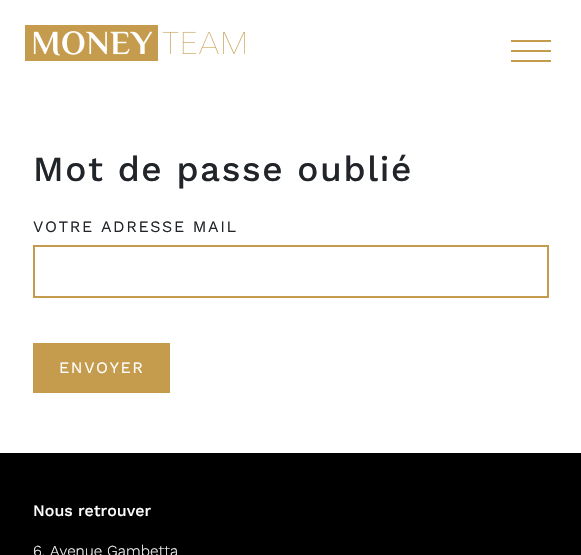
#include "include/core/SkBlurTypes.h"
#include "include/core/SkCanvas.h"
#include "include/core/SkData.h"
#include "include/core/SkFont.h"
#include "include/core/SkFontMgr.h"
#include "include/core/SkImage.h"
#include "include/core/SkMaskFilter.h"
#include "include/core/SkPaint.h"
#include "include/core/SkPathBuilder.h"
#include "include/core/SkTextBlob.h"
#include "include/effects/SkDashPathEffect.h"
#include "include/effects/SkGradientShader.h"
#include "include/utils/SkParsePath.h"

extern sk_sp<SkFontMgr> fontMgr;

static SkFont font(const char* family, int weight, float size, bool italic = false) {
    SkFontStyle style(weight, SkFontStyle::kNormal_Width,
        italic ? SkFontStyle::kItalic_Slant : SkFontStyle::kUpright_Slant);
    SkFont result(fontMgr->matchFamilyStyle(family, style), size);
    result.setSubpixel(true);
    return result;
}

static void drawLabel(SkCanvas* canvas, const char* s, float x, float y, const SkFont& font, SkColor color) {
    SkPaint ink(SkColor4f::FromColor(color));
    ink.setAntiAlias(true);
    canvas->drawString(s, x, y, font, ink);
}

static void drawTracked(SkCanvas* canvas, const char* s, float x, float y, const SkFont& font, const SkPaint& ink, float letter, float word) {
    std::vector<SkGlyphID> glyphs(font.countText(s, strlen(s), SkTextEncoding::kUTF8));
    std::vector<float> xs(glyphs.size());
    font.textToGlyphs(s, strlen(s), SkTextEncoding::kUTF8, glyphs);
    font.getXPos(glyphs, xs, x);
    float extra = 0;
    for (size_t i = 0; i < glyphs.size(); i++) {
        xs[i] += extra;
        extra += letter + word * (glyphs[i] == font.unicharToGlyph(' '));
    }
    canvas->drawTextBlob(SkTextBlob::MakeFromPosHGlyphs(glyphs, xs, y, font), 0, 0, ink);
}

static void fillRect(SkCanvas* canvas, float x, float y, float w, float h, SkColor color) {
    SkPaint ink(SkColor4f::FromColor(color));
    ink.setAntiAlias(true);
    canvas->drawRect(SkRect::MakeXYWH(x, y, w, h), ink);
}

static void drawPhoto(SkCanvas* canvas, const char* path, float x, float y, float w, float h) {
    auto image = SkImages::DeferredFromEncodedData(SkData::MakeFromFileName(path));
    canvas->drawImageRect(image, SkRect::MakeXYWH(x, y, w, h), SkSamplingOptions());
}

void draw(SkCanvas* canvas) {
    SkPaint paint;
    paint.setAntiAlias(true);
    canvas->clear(0xFFFFFFFF);
    drawPhoto(canvas, "assets/img1.png", 25, 25, 220, 36);
    fillRect(canvas, 511, 50, 40, 2, 0xFFC59C4D);
    fillRect(canvas, 511, 40, 40, 2, 0xFFC59C4D);
    fillRect(canvas, 511, 60, 40, 2, 0xFFC59C4D);
    SkFont font1 = font("Work Sans", 500, 35.25f);
    paint.setColor(0xFF212529);
    drawTracked(canvas, "Mot de passe oublié", 33, 181, font1, paint, 1.6f, 0);
    SkFont font2 = font("Work Sans", 400, 16);
    drawTracked(canvas, "VOTRE ADRESSE MAIL", 33, 232, font2, paint, 1.6f, 0);
    paint.setStroke(true);
    paint.setStrokeWidth(2);
    paint.setColor(0xFFC59C4D);
    canvas->drawRect(SkRect::MakeXYWH(34, 246, 514, 51), paint);
    fillRect(canvas, 33, 343, 137, 50, 0xFFC59C4D);
    paint.setStroke(false);
    paint.setColor(0xFFFFFFFF);
    drawTracked(canvas, "ENVOYER", 59, 373, font2, paint, 1.6f, 0);
    fillRect(canvas, 0, 453, 581, 102, 0xFF000000);
    SkFont font3 = font("Work Sans", 500, 16);
    drawLabel(canvas, "Nous retrouver", 33, 516, font3, 0xFFFFFFFF);
    SkFont font4 = font("Work Sans", 300, 15.25f);
    drawLabel(canvas, "6, Avenue Gambetta", 33, 556, font4, 0xFFFFFFFF);
}
